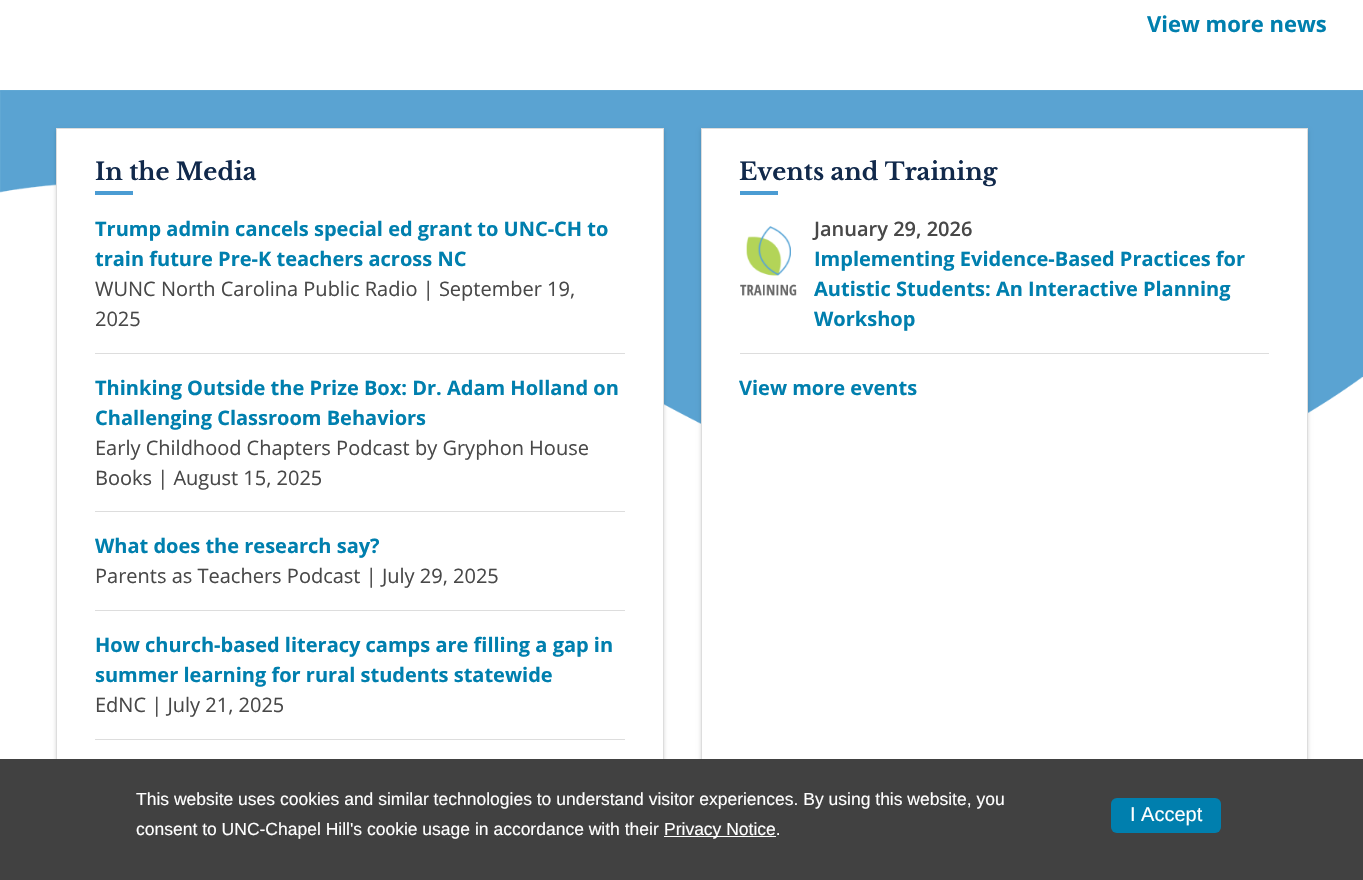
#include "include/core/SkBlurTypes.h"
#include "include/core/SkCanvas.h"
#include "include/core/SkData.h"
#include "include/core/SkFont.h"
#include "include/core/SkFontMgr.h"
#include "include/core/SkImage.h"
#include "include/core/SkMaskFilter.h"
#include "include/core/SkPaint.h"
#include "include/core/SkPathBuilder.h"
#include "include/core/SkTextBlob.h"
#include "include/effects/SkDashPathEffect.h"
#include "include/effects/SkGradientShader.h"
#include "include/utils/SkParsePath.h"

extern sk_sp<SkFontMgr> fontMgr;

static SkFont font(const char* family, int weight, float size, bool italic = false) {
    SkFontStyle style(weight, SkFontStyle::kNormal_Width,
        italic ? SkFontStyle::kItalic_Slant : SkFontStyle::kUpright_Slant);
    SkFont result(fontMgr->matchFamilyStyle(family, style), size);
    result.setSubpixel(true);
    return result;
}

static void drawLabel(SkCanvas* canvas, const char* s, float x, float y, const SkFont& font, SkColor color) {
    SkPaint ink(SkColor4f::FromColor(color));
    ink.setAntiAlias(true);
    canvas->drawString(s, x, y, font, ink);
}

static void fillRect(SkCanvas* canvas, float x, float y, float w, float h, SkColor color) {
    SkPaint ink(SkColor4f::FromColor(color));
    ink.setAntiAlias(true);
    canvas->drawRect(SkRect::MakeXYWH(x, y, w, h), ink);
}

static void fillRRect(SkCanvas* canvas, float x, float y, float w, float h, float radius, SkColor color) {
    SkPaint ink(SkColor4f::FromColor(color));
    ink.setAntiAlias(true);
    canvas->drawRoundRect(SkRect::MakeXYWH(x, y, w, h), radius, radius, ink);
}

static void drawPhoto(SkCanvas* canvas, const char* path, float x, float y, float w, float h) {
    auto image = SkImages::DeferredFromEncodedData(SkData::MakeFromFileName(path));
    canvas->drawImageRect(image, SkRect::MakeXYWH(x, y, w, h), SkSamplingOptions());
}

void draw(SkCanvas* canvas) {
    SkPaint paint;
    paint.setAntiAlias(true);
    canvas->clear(0xFFFFFFFF);
    SkFont font1 = font("Open Sans", 700, 22);
    drawLabel(canvas, "View more news", 1147, 32, font1, 0xFF007FAE);
    drawPhoto(canvas, "assets/img1.png", 0, 90, 1363, 334);
    paint.setColor(0x29000000);
    paint.setMaskFilter(SkMaskFilter::MakeBlur(kNormal_SkBlurStyle, 2));
    canvas->drawRect(SkRect::MakeXYWH(56, 130, 608, 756), paint);
    paint.setMaskFilter(nullptr);
    fillRect(canvas, 57, 129, 606, 630, 0xFFFFFFFF);
    paint.setStroke(true);
    paint.setStrokeWidth(1);
    paint.setColor(0xFFDDDDDD);
    canvas->drawRect(SkRect::MakeXYWH(56.5f, 128.5f, 607, 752), paint);
    SkFont font2 = font("Libre Baskerville", 700, 24);
    drawLabel(canvas, "In the Media", 95, 180, font2, 0xFF11294B);
    fillRect(canvas, 95, 191, 38, 4, 0xFF4B9CD3);
    fillRect(canvas, 95, 353, 530, 1, 0xFFDDDDDD);
    SkFont font3 = font("Open Sans", 700, 20);
    drawLabel(canvas, "Trump admin cancels special ed grant to UNC-CH to", 95, 236, font3, 0xFF007FAE);
    drawLabel(canvas, "train future Pre-K teachers across NC", 95, 266, font3, 0xFF007FAE);
    SkFont font4 = font("Open Sans", 400, 20);
    drawLabel(canvas, "WUNC North Carolina Public Radio | September 19,", 95, 296, font4, 0xFF484848);
    drawLabel(canvas, "2025", 95, 326, font4, 0xFF484848);
    fillRect(canvas, 95, 511, 530, 1, 0xFFDDDDDD);
    drawLabel(canvas, "Thinking Outside the Prize Box: Dr. Adam Holland on", 95, 395, font3, 0xFF007FAE);
    drawLabel(canvas, "Challenging Classroom Behaviors", 95, 425, font3, 0xFF007FAE);
    drawLabel(canvas, "Early Childhood Chapters Podcast by Gryphon House", 95, 455, font4, 0xFF484848);
    drawLabel(canvas, "Books | August 15, 2025", 95, 485, font4, 0xFF484848);
    fillRect(canvas, 95, 610, 530, 1, 0xFFDDDDDD);
    drawLabel(canvas, "What does the research say?", 95, 553, font3, 0xFF007FAE);
    drawLabel(canvas, "Parents as Teachers Podcast | July 29, 2025", 95, 583, font4, 0xFF484848);
    fillRect(canvas, 95, 739, 530, 1, 0xFFDDDDDD);
    drawLabel(canvas, "How church-based literacy camps are filling a gap in", 95, 652, font3, 0xFF007FAE);
    drawLabel(canvas, "summer learning for rural students statewide", 95, 682, font3, 0xFF007FAE);
    drawLabel(canvas, "EdNC | July 21, 2025", 95, 712, font4, 0xFF484848);
    paint.setStroke(false);
    paint.setColor(0x29000000);
    paint.setMaskFilter(SkMaskFilter::MakeBlur(kNormal_SkBlurStyle, 2));
    canvas->drawRect(SkRect::MakeXYWH(701, 130, 607, 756), paint);
    paint.setMaskFilter(nullptr);
    fillRect(canvas, 702, 129, 605, 630, 0xFFFFFFFF);
    paint.setStroke(true);
    paint.setColor(0xFFDDDDDD);
    canvas->drawRect(SkRect::MakeXYWH(701.5f, 128.5f, 606, 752), paint);
    drawLabel(canvas, "Events and Training", 739, 180, font2, 0xFF11294B);
    fillRect(canvas, 740, 191, 38, 4, 0xFF4B9CD3);
    drawPhoto(canvas, "assets/img2.png", 740, 226, 57, 70);
    fillRect(canvas, 740, 353, 529, 1, 0xFFDDDDDD);
    SkFont font5 = font("Open Sans", 600, 20);
    drawLabel(canvas, "January 29, 2026", 814, 236, font5, 0xFF484848);
    drawLabel(canvas, "Implementing Evidence-Based Practices for", 814, 266, font3, 0xFF007FAE);
    drawLabel(canvas, "Autistic Students: An Interactive Planning", 814, 296, font3, 0xFF007FAE);
    drawLabel(canvas, "Workshop", 814, 326, font3, 0xFF007FAE);
    drawLabel(canvas, "View more events", 739, 395, font3, 0xFF007FAE);
    fillRect(canvas, 0, 759, 1363, 121, 0xFF414141);
    SkFont font6 = font("Liberation Sans", 400, 17.5f);
    drawLabel(canvas, "This website uses cookies and similar technologies to understand visitor experiences. By using this website, you", 136, 805, font6, 0xFFFFFFFF);
    drawLabel(canvas, "consent to UNC-Chapel Hill's cookie usage in accordance with their", 136, 835, font6, 0xFFFFFFFF);
    fillRect(canvas, 664, 836, 112, 1, 0xFFFFFFFF);
    drawLabel(canvas, "Privacy Notice.", 664, 835, font6, 0xFFFFFFFF);
    fillRRect(canvas, 1111, 798, 110, 35, 6, 0xFF007FAE);
    SkFont font7 = font("Liberation Sans", 400, 20);
    drawLabel(canvas, "I Accept", 1130, 821, font7, 0xFFFFFFFF);
}
